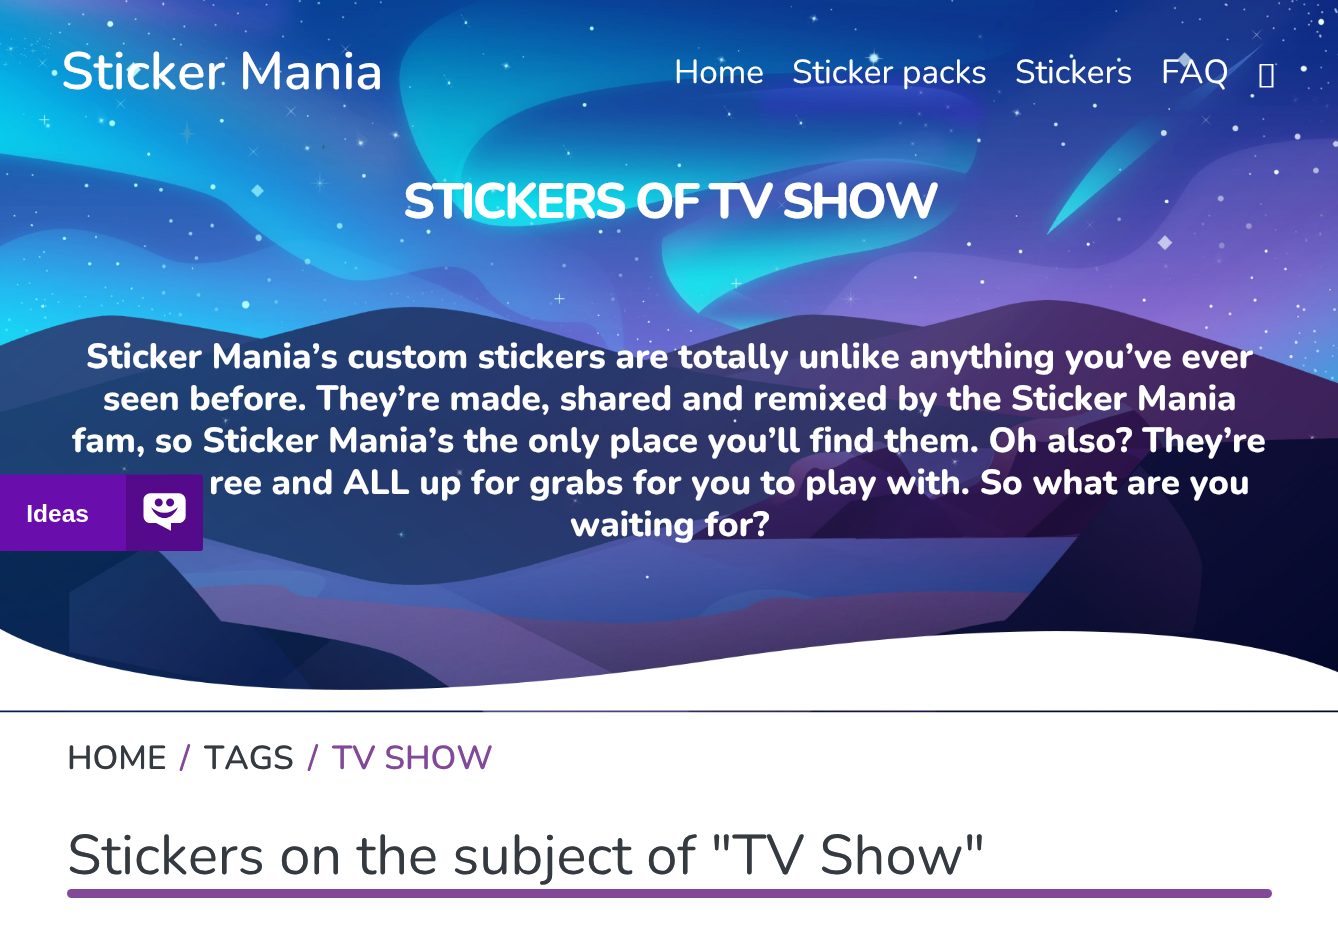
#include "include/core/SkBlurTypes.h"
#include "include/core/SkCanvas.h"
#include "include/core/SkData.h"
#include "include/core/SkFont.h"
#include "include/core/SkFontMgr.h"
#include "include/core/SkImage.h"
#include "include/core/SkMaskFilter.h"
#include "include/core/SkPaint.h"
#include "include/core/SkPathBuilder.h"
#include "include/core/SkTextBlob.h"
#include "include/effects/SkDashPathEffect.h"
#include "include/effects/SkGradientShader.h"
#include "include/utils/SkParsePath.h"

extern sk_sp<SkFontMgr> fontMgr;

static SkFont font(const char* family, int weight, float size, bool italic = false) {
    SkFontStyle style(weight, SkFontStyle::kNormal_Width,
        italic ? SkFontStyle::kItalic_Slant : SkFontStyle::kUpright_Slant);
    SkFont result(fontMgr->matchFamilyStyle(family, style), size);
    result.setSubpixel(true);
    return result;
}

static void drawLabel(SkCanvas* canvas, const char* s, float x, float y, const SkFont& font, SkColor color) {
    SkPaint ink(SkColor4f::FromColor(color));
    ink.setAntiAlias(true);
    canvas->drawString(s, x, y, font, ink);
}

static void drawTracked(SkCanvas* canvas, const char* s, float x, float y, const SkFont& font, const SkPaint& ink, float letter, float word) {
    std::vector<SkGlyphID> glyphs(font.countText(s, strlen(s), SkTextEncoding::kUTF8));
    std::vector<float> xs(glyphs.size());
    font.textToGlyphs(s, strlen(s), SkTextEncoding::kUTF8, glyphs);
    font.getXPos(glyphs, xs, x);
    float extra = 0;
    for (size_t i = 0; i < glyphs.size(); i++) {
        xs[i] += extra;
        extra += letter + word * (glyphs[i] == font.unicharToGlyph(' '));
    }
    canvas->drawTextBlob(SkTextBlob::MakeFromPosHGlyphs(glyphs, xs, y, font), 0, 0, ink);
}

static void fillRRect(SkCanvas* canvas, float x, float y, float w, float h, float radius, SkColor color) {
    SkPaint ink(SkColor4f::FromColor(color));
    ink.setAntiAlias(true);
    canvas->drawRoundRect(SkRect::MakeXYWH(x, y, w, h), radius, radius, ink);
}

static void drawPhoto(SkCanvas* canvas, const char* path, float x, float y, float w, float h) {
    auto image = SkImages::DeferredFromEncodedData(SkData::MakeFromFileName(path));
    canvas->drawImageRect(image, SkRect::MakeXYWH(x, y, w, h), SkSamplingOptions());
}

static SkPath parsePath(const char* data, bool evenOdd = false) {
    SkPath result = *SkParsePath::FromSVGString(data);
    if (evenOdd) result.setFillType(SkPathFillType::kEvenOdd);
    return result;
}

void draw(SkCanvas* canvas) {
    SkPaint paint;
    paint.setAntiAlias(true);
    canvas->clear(0xFFFFFFFF);
    drawPhoto(canvas, "assets/img1.png", 0, 0, 1338, 713);
    SkFont font1 = font("Nunito", 600, 52.5f);
    drawLabel(canvas, "Sticker Mania", 61, 89, font1, 0xFFFFFFFF);
    SkFont font2 = font("Nunito", 400, 33.25f);
    drawLabel(canvas, "Home", 674, 83, font2, 0xFFFFFFFF);
    drawLabel(canvas, "Sticker packs", 792, 83, font2, 0xFFFFFFFF);
    drawLabel(canvas, "Stickers", 1015, 83, font2, 0xFFFFFFFF);
    drawLabel(canvas, "FAQ", 1161, 83, font2, 0xFFFFFFFF);
    paint.setColor(0xFFFFFFFF);
    canvas->drawPath(parsePath("M1259.5 87.5V64H1273.5V87.5ZM1261.5 86H1271.5V65.5H1261.5Z"), paint);
    SkFont font3 = font("Nunito", 800, 49.75f);
    drawTracked(canvas, "STICKERS OF TV SHOW", 403, 218, font3, paint, -2.75f, 0);
    SkFont font4 = font("Nunito", 800, 35);
    drawLabel(canvas, "Sticker Mania’s custom stickers are totally unlike anything you’ve ever", 86, 368, font4, 0xFFFFFFFF);
    drawLabel(canvas, "seen before. They’re made, shared and remixed by the Sticker Mania", 103, 410, font4, 0xFFFFFFFF);
    drawLabel(canvas, "fam, so Sticker Mania’s the only place you’ll find them. Oh also? They’re", 72, 452, font4, 0xFFFFFFFF);
    drawLabel(canvas, "ree and ALL up for grabs for you to play with. So what are you", 209, 494, font4, 0xFFFFFFFF);
    drawLabel(canvas, "waiting for?", 570, 536, font4, 0xFFFFFFFF);
    drawPhoto(canvas, "assets/img2.png", 0, 628, 1338, 83);
    drawPhoto(canvas, "assets/img3.png", 0, 474, 203, 77);
    SkFont font5 = font("Nunito", 600, 33.25f);
    drawLabel(canvas, "HOME", 67, 769, font5, 0xFF343A40);
    drawLabel(canvas, "/", 180, 769, font5, 0xFF814997);
    drawLabel(canvas, "TAGS", 204, 769, font5, 0xFF343A40);
    drawLabel(canvas, "/", 308, 769, font5, 0xFF814997);
    drawLabel(canvas, "TV SHOW", 332, 769, font5, 0xFF814997);
    SkFont font6 = font("Nunito", 400, 56);
    drawLabel(canvas, "Stickers on the subject of \"TV Show\"", 67, 874, font6, 0xFF343A40);
    fillRRect(canvas, 67, 889, 1205, 9, 4.5f, 0xFF814997);
}
